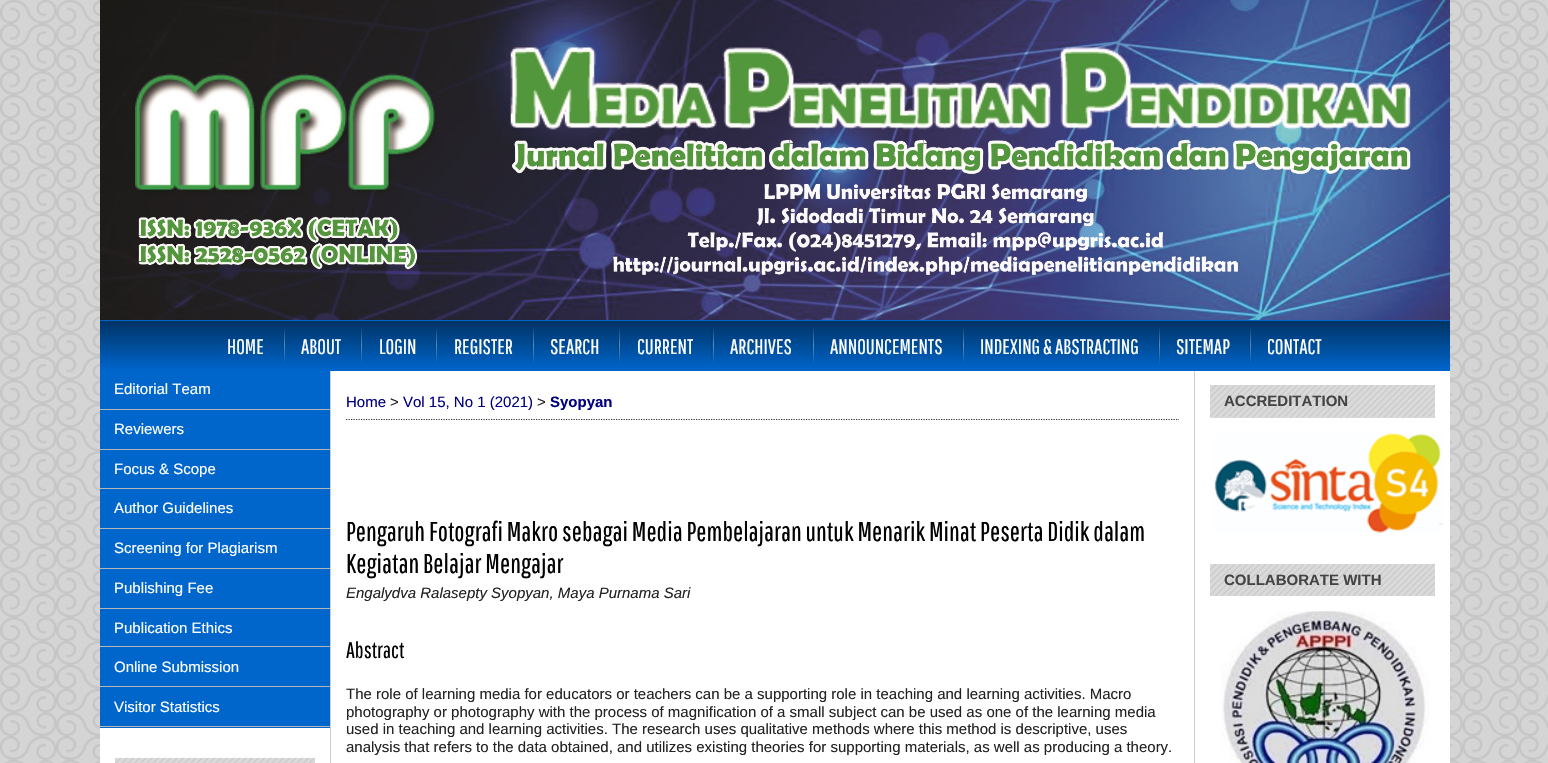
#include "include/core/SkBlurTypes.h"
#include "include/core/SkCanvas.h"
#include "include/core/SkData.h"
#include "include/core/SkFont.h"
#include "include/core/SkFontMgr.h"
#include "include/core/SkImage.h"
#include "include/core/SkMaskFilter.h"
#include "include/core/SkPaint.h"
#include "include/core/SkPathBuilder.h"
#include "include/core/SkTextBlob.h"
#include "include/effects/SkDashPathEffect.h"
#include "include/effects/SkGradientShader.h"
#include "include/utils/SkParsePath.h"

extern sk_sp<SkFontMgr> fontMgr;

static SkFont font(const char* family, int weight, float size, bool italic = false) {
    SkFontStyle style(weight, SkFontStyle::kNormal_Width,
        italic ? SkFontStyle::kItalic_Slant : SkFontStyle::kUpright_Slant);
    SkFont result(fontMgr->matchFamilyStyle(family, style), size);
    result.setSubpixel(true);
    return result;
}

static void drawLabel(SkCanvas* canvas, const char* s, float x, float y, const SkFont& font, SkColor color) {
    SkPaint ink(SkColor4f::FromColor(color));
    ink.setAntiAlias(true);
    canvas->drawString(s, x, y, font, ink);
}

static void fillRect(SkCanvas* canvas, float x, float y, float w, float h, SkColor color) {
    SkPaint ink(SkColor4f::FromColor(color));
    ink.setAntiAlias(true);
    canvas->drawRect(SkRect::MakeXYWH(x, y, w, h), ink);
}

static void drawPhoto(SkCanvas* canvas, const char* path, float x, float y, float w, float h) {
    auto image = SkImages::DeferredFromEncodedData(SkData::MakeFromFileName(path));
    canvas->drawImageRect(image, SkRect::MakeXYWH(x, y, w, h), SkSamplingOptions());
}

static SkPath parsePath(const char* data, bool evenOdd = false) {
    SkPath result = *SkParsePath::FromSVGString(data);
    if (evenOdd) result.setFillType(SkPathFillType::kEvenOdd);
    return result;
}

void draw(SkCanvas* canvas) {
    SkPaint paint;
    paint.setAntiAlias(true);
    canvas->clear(0xFFFFFFFF);
    drawPhoto(canvas, "assets/img1.png", 0, 0, 1548, 763);
    drawPhoto(canvas, "assets/img2.png", 100, 0, 1350, 320);
    fillRect(canvas, 100, 371, 1350, 392, 0xFFFFFFFF);
    {
        const SkColor colors[] = {0xFF003366, 0xFF0066CC};
        const float stops[] = {0, 1};
        const SkPoint ends[] = {{775, 271}, {775, 321}};
        paint.setShader(SkGradientShader::MakeLinear(ends, colors, stops, 2, SkTileMode::kClamp));
        paint.setAlpha(255);
    }
    canvas->drawRect(SkRect::MakeXYWH(100, 320, 1350, 1), paint);
    fillRect(canvas, 330, 370, 1, 393, 0xFFCCCCCC);
    fillRect(canvas, 1194, 370, 1, 393, 0xFFCCCCCC);
    {
        const SkColor colors[] = {0xFF003366, 0xFF0066CC};
        const float stops[] = {0, 1};
        const SkPoint ends[] = {{775, 321}, {775, 371}};
        paint.setShader(SkGradientShader::MakeLinear(ends, colors, stops, 2, SkTileMode::kClamp));
        paint.setAlpha(255);
    }
    canvas->drawRect(SkRect::MakeXYWH(100, 321, 1350, 50), paint);
    SkFont font1 = font("Pathway Gothic One", 400, 21);
    drawLabel(canvas, "HOME", 227, 354, font1, 0xFFFFFFFF);
    {
        const SkColor colors[] = {0x00000000, 0x26000000, 0x00000000};
        const float stops[] = {0, 0.5f, 1};
        const SkPoint ends[] = {{283, 326}, {283, 364}};
        paint.setShader(SkGradientShader::MakeLinear(ends, colors, stops, 3, SkTileMode::kClamp));
        paint.setAlpha(255);
    }
    canvas->drawRect(SkRect::MakeXYWH(283, 326, 1, 38), paint);
    {
        const SkColor colors[] = {0x00FFFFFF, 0x59FFFFFF, 0x00FFFFFF};
        const float stops[] = {0, 0.5f, 1};
        const SkPoint ends[] = {{284, 326}, {284, 364}};
        paint.setShader(SkGradientShader::MakeLinear(ends, colors, stops, 3, SkTileMode::kClamp));
        paint.setAlpha(255);
    }
    canvas->drawRect(SkRect::MakeXYWH(284, 326, 1, 38), paint);
    drawLabel(canvas, "ABOUT", 301, 354, font1, 0xFFFFFFFF);
    {
        const SkColor colors[] = {0x00000000, 0x26000000, 0x00000000};
        const float stops[] = {0, 0.5f, 1};
        const SkPoint ends[] = {{361, 326}, {361, 364}};
        paint.setShader(SkGradientShader::MakeLinear(ends, colors, stops, 3, SkTileMode::kClamp));
        paint.setAlpha(255);
    }
    canvas->drawRect(SkRect::MakeXYWH(360, 326, 1, 38), paint);
    {
        const SkColor colors[] = {0x00FFFFFF, 0x59FFFFFF, 0x00FFFFFF};
        const float stops[] = {0, 0.5f, 1};
        const SkPoint ends[] = {{362, 326}, {362, 364}};
        paint.setShader(SkGradientShader::MakeLinear(ends, colors, stops, 3, SkTileMode::kClamp));
        paint.setAlpha(255);
    }
    canvas->drawRect(SkRect::MakeXYWH(361, 326, 1, 38), paint);
    drawLabel(canvas, "LOGIN", 379, 354, font1, 0xFFFFFFFF);
    {
        const SkColor colors[] = {0x00000000, 0x26000000, 0x00000000};
        const float stops[] = {0, 0.5f, 1};
        const SkPoint ends[] = {{436, 326}, {436, 364}};
        paint.setShader(SkGradientShader::MakeLinear(ends, colors, stops, 3, SkTileMode::kClamp));
        paint.setAlpha(255);
    }
    canvas->drawRect(SkRect::MakeXYWH(435, 326, 1, 38), paint);
    {
        const SkColor colors[] = {0x00FFFFFF, 0x59FFFFFF, 0x00FFFFFF};
        const float stops[] = {0, 0.5f, 1};
        const SkPoint ends[] = {{437, 326}, {437, 364}};
        paint.setShader(SkGradientShader::MakeLinear(ends, colors, stops, 3, SkTileMode::kClamp));
        paint.setAlpha(255);
    }
    canvas->drawRect(SkRect::MakeXYWH(436, 326, 1, 38), paint);
    drawLabel(canvas, "REGISTER", 454, 354, font1, 0xFFFFFFFF);
    {
        const SkColor colors[] = {0x00000000, 0x26000000, 0x00000000};
        const float stops[] = {0, 0.5f, 1};
        const SkPoint ends[] = {{532, 326}, {532, 364}};
        paint.setShader(SkGradientShader::MakeLinear(ends, colors, stops, 3, SkTileMode::kClamp));
        paint.setAlpha(255);
    }
    canvas->drawRect(SkRect::MakeXYWH(531, 326, 1, 38), paint);
    {
        const SkColor colors[] = {0x00FFFFFF, 0x59FFFFFF, 0x00FFFFFF};
        const float stops[] = {0, 0.5f, 1};
        const SkPoint ends[] = {{533, 326}, {533, 364}};
        paint.setShader(SkGradientShader::MakeLinear(ends, colors, stops, 3, SkTileMode::kClamp));
        paint.setAlpha(255);
    }
    canvas->drawRect(SkRect::MakeXYWH(533, 326, 1, 38), paint);
    drawLabel(canvas, "SEARCH", 550, 354, font1, 0xFFFFFFFF);
    {
        const SkColor colors[] = {0x00000000, 0x26000000, 0x00000000};
        const float stops[] = {0, 0.5f, 1};
        const SkPoint ends[] = {{618, 326}, {618, 364}};
        paint.setShader(SkGradientShader::MakeLinear(ends, colors, stops, 3, SkTileMode::kClamp));
        paint.setAlpha(255);
    }
    canvas->drawRect(SkRect::MakeXYWH(618, 326, 1, 38), paint);
    {
        const SkColor colors[] = {0x00FFFFFF, 0x59FFFFFF, 0x00FFFFFF};
        const float stops[] = {0, 0.5f, 1};
        const SkPoint ends[] = {{619, 326}, {619, 364}};
        paint.setShader(SkGradientShader::MakeLinear(ends, colors, stops, 3, SkTileMode::kClamp));
        paint.setAlpha(255);
    }
    canvas->drawRect(SkRect::MakeXYWH(619, 326, 1, 38), paint);
    drawLabel(canvas, "CURRENT", 637, 354, font1, 0xFFFFFFFF);
    {
        const SkColor colors[] = {0x00000000, 0x26000000, 0x00000000};
        const float stops[] = {0, 0.5f, 1};
        const SkPoint ends[] = {{712, 326}, {712, 364}};
        paint.setShader(SkGradientShader::MakeLinear(ends, colors, stops, 3, SkTileMode::kClamp));
        paint.setAlpha(255);
    }
    canvas->drawRect(SkRect::MakeXYWH(711, 326, 1, 38), paint);
    {
        const SkColor colors[] = {0x00FFFFFF, 0x59FFFFFF, 0x00FFFFFF};
        const float stops[] = {0, 0.5f, 1};
        const SkPoint ends[] = {{713, 326}, {713, 364}};
        paint.setShader(SkGradientShader::MakeLinear(ends, colors, stops, 3, SkTileMode::kClamp));
        paint.setAlpha(255);
    }
    canvas->drawRect(SkRect::MakeXYWH(713, 326, 1, 38), paint);
    drawLabel(canvas, "ARCHIVES", 730, 354, font1, 0xFFFFFFFF);
    {
        const SkColor colors[] = {0x00000000, 0x26000000, 0x00000000};
        const float stops[] = {0, 0.5f, 1};
        const SkPoint ends[] = {{812, 326}, {812, 364}};
        paint.setShader(SkGradientShader::MakeLinear(ends, colors, stops, 3, SkTileMode::kClamp));
        paint.setAlpha(255);
    }
    canvas->drawRect(SkRect::MakeXYWH(811, 326, 1, 38), paint);
    {
        const SkColor colors[] = {0x00FFFFFF, 0x59FFFFFF, 0x00FFFFFF};
        const float stops[] = {0, 0.5f, 1};
        const SkPoint ends[] = {{813, 326}, {813, 364}};
        paint.setShader(SkGradientShader::MakeLinear(ends, colors, stops, 3, SkTileMode::kClamp));
        paint.setAlpha(255);
    }
    canvas->drawRect(SkRect::MakeXYWH(813, 326, 1, 38), paint);
    drawLabel(canvas, "ANNOUNCEMENTS", 830, 354, font1, 0xFFFFFFFF);
    {
        const SkColor colors[] = {0x00000000, 0x26000000, 0x00000000};
        const float stops[] = {0, 0.5f, 1};
        const SkPoint ends[] = {{962, 326}, {962, 364}};
        paint.setShader(SkGradientShader::MakeLinear(ends, colors, stops, 3, SkTileMode::kClamp));
        paint.setAlpha(255);
    }
    canvas->drawRect(SkRect::MakeXYWH(961, 326, 1, 38), paint);
    {
        const SkColor colors[] = {0x00FFFFFF, 0x59FFFFFF, 0x00FFFFFF};
        const float stops[] = {0, 0.5f, 1};
        const SkPoint ends[] = {{963, 326}, {963, 364}};
        paint.setShader(SkGradientShader::MakeLinear(ends, colors, stops, 3, SkTileMode::kClamp));
        paint.setAlpha(255);
    }
    canvas->drawRect(SkRect::MakeXYWH(963, 326, 1, 38), paint);
    drawLabel(canvas, "INDEXING & ABSTRACTING", 980, 354, font1, 0xFFFFFFFF);
    {
        const SkColor colors[] = {0x00000000, 0x26000000, 0x00000000};
        const float stops[] = {0, 0.5f, 1};
        const SkPoint ends[] = {{1158, 326}, {1158, 364}};
        paint.setShader(SkGradientShader::MakeLinear(ends, colors, stops, 3, SkTileMode::kClamp));
        paint.setAlpha(255);
    }
    canvas->drawRect(SkRect::MakeXYWH(1158, 326, 1, 38), paint);
    {
        const SkColor colors[] = {0x00FFFFFF, 0x59FFFFFF, 0x00FFFFFF};
        const float stops[] = {0, 0.5f, 1};
        const SkPoint ends[] = {{1159, 326}, {1159, 364}};
        paint.setShader(SkGradientShader::MakeLinear(ends, colors, stops, 3, SkTileMode::kClamp));
        paint.setAlpha(255);
    }
    canvas->drawRect(SkRect::MakeXYWH(1159, 326, 1, 38), paint);
    drawLabel(canvas, "SITEMAP", 1176, 354, font1, 0xFFFFFFFF);
    {
        const SkColor colors[] = {0x00000000, 0x26000000, 0x00000000};
        const float stops[] = {0, 0.5f, 1};
        const SkPoint ends[] = {{1249, 326}, {1249, 364}};
        paint.setShader(SkGradientShader::MakeLinear(ends, colors, stops, 3, SkTileMode::kClamp));
        paint.setAlpha(255);
    }
    canvas->drawRect(SkRect::MakeXYWH(1249, 326, 1, 38), paint);
    {
        const SkColor colors[] = {0x00FFFFFF, 0x59FFFFFF, 0x00FFFFFF};
        const float stops[] = {0, 0.5f, 1};
        const SkPoint ends[] = {{1251, 326}, {1251, 364}};
        paint.setShader(SkGradientShader::MakeLinear(ends, colors, stops, 3, SkTileMode::kClamp));
        paint.setAlpha(255);
    }
    canvas->drawRect(SkRect::MakeXYWH(1250, 326, 1, 38), paint);
    drawLabel(canvas, "CONTACT", 1267, 354, font1, 0xFFFFFFFF);
    paint.setStroke(true);
    paint.setStrokeWidth(1.2f);
    paint.setShader(nullptr);
    paint.setColor(0xFF333333);
    paint.setPathEffect(SkDashPathEffect::Make({{1.25f, 1.25f}}, 0));
    canvas->drawPath(parsePath("M346 419.5H1179"), paint);
    paint.setPathEffect(nullptr);
    SkFont font2 = font("Liberation Sans", 400, 15);
    drawLabel(canvas, "Home", 346, 407, font2, 0xFF000080);
    drawLabel(canvas, ">", 390, 407, font2, 0xFF222222);
    drawLabel(canvas, "Vol 15, No 1 (2021)", 403, 407, font2, 0xFF000080);
    drawLabel(canvas, ">", 537, 407, font2, 0xFF222222);
    SkFont font3 = font("Liberation Sans", 700, 15);
    drawLabel(canvas, "Syopyan", 550, 407, font3, 0xFF000080);
    SkFont font4 = font("Pathway Gothic One", 400, 27);
    drawLabel(canvas, "Pengaruh Fotografi Makro sebagai Media Pembelajaran untuk Menarik Minat Peserta Didik dalam", 346, 541, font4, 0xFF000000);
    drawLabel(canvas, "Kegiatan Belajar Mengajar", 346, 573, font4, 0xFF000000);
    SkFont font5 = font("Liberation Sans", 400, 15, true);
    drawLabel(canvas, "Engalydva Ralasepty Syopyan, Maya Purnama Sari", 346, 598, font5, 0xFF222222);
    SkFont font6 = font("Pathway Gothic One", 400, 22.5f);
    drawLabel(canvas, "Abstract", 346, 658, font6, 0xFF000000);
    drawLabel(canvas, "The role of learning media for educators or teachers can be a supporting role in teaching and learning activities. Macro", 346, 699, font2, 0xFF222222);
    drawLabel(canvas, "photography or photography with the process of magnification of a small subject can be used as one of the learning media", 346, 717, font2, 0xFF222222);
    drawLabel(canvas, "used in teaching and learning activities. The research uses qualitative methods where this method is descriptive, uses", 346, 734, font2, 0xFF222222);
    drawLabel(canvas, "analysis that refers to the data obtained, and utilizes existing theories for supporting materials, as well as producing a theory.", 346, 752, font2, 0xFF222222);
    fillRect(canvas, 100, 371, 230, 38, 0xFF0066CC);
    fillRect(canvas, 100, 409, 230, 1, 0xFFB5B5B5);
    drawLabel(canvas, "Editorial Team", 114, 394, font2, 0xFFFFFFFF);
    fillRect(canvas, 100, 410, 230, 39, 0xFF0066CC);
    fillRect(canvas, 100, 449, 230, 1, 0xFFB5B5B5);
    drawLabel(canvas, "Reviewers", 114, 434, font2, 0xFFFFFFFF);
    fillRect(canvas, 100, 450, 230, 38, 0xFF0066CC);
    fillRect(canvas, 100, 488, 230, 1, 0xFFB5B5B5);
    drawLabel(canvas, "Focus & Scope", 114, 474, font2, 0xFFFFFFFF);
    fillRect(canvas, 100, 489, 230, 39, 0xFF0066CC);
    fillRect(canvas, 100, 528, 230, 1, 0xFFB5B5B5);
    drawLabel(canvas, "Author Guidelines", 114, 513, font2, 0xFFFFFFFF);
    fillRect(canvas, 100, 529, 230, 39, 0xFF0066CC);
    fillRect(canvas, 100, 568, 230, 1, 0xFFB5B5B5);
    drawLabel(canvas, "Screening for Plagiarism", 114, 553, font2, 0xFFFFFFFF);
    fillRect(canvas, 100, 569, 230, 39, 0xFF0066CC);
    fillRect(canvas, 100, 608, 230, 1, 0xFFB5B5B5);
    drawLabel(canvas, "Publishing Fee", 114, 593, font2, 0xFFFFFFFF);
    fillRect(canvas, 100, 609, 230, 119, 0xFF0066CC);
    fillRect(canvas, 100, 646, 230, 1, 0xFFB5B5B5);
    drawLabel(canvas, "Publication Ethics", 114, 633, font2, 0xFFFFFFFF);
    fillRect(canvas, 100, 686, 230, 1, 0xFFB5B5B5);
    drawLabel(canvas, "Online Submission", 114, 672, font2, 0xFFFFFFFF);
    fillRect(canvas, 100, 726, 230, 1, 0xFFB5B5B5);
    drawLabel(canvas, "Visitor Statistics", 114, 712, font2, 0xFFFFFFFF);
    fillRect(canvas, 115, 758, 200, 5, 0xFFDADADA);
    drawPhoto(canvas, "assets/img3.png", 115, 757, 200, 6);
    fillRect(canvas, 1210, 385, 225, 33, 0xFFDADADA);
    drawPhoto(canvas, "assets/img4.png", 1210, 385, 225, 33);
    drawLabel(canvas, "ACCREDITATION", 1224, 406, font3, 0xFF444444);
    drawPhoto(canvas, "assets/img5.png", 1214, 433, 230, 100);
    fillRect(canvas, 1210, 564, 225, 32, 0xFFDADADA);
    drawPhoto(canvas, "assets/img6.png", 1210, 564, 225, 32);
    drawLabel(canvas, "COLLABORATE WITH", 1224, 585, font3, 0xFF444444);
    drawPhoto(canvas, "assets/img7.png", 1220, 611, 210, 152);
}
